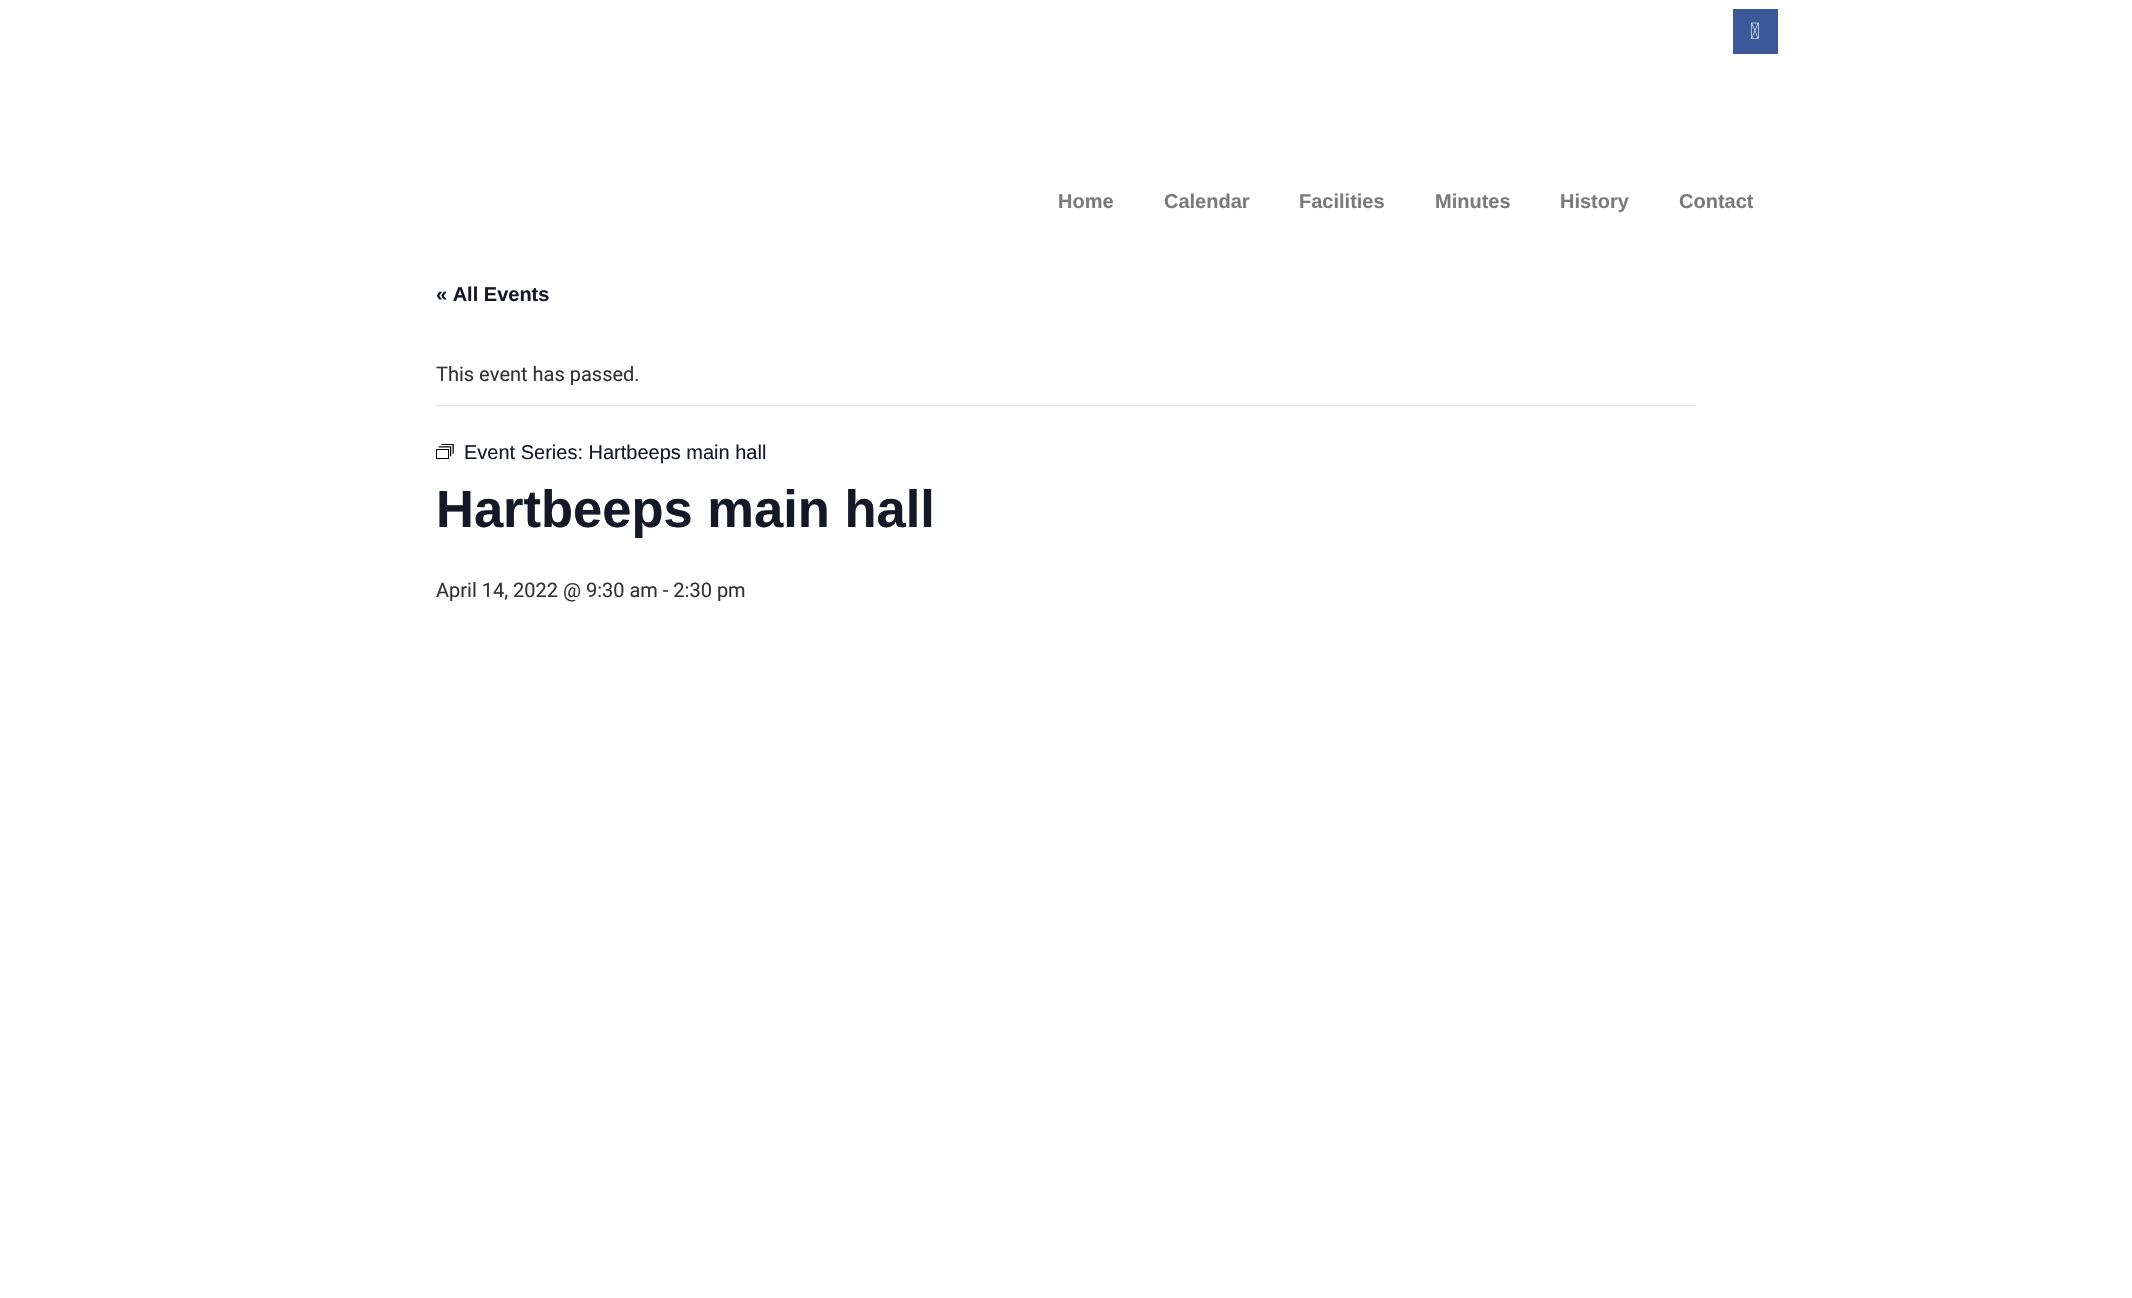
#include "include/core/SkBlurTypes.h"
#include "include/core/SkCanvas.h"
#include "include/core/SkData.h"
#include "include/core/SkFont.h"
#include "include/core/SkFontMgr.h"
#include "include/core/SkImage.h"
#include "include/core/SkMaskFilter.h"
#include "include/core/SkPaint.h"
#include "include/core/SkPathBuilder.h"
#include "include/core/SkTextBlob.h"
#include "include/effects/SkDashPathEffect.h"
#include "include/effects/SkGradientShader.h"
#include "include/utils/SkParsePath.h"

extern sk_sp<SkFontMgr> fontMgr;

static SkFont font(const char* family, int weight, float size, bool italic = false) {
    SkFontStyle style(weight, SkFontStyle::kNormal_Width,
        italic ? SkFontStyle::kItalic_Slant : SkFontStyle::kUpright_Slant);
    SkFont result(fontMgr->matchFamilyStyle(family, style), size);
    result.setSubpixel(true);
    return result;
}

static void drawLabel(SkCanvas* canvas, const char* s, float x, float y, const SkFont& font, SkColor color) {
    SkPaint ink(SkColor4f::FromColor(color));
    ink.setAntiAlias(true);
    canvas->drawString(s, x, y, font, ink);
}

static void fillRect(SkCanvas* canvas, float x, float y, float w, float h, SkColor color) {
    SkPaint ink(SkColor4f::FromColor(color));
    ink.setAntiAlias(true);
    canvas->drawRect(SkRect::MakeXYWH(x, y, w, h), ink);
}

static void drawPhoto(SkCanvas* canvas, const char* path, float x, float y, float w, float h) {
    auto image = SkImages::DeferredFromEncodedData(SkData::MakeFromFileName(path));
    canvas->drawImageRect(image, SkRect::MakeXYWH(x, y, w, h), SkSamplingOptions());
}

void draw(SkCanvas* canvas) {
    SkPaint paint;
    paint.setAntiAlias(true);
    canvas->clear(0xFFFFFFFF);
    fillRect(canvas, 1733, 9, 45, 45, 0xFF3B5998);
    drawPhoto(canvas, "assets/img1.png", 1751, 22, 8, 17);
    SkFont font1 = font("Liberation Sans", 700, 20);
    drawLabel(canvas, "Home", 1058, 208, font1, 0xFF7A7A7A);
    drawLabel(canvas, "Calendar", 1164, 208, font1, 0xFF7A7A7A);
    drawLabel(canvas, "Facilities", 1299, 208, font1, 0xFF7A7A7A);
    drawLabel(canvas, "Minutes", 1435, 208, font1, 0xFF7A7A7A);
    drawLabel(canvas, "History", 1560, 208, font1, 0xFF7A7A7A);
    drawLabel(canvas, "Contact", 1679, 208, font1, 0xFF7A7A7A);
    drawLabel(canvas, "« All Events", 436, 301, font1, 0xFF141827);
    fillRect(canvas, 436, 405, 1260, 1, 0xFFE4E4E4);
    SkFont font2 = font("Roboto", 400, 20);
    drawLabel(canvas, "This event has passed.", 436, 381, font2, 0xFF333333);
    drawPhoto(canvas, "assets/img2.png", 436, 444, 18, 15);
    SkFont font3 = font("Liberation Sans", 400, 20);
    drawLabel(canvas, "Event Series: Hartbeeps main hall", 464, 459, font3, 0xFF141827);
    SkFont font4 = font("Liberation Sans", 700, 52.5f);
    drawLabel(canvas, "Hartbeeps main hall", 436, 527, font4, 0xFF141827);
    drawLabel(canvas, "April 14, 2022 @ 9:30 am - 2:30 pm", 436, 597, font2, 0xFF333333);
}
